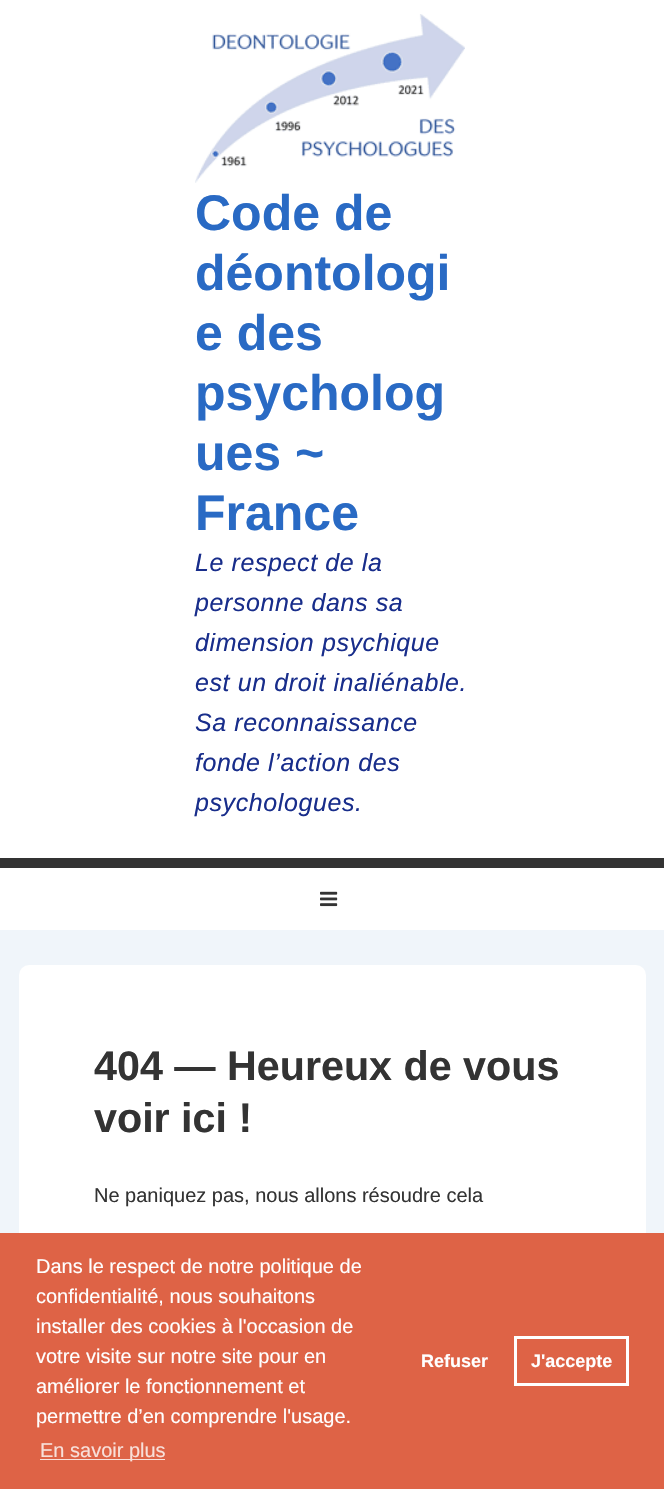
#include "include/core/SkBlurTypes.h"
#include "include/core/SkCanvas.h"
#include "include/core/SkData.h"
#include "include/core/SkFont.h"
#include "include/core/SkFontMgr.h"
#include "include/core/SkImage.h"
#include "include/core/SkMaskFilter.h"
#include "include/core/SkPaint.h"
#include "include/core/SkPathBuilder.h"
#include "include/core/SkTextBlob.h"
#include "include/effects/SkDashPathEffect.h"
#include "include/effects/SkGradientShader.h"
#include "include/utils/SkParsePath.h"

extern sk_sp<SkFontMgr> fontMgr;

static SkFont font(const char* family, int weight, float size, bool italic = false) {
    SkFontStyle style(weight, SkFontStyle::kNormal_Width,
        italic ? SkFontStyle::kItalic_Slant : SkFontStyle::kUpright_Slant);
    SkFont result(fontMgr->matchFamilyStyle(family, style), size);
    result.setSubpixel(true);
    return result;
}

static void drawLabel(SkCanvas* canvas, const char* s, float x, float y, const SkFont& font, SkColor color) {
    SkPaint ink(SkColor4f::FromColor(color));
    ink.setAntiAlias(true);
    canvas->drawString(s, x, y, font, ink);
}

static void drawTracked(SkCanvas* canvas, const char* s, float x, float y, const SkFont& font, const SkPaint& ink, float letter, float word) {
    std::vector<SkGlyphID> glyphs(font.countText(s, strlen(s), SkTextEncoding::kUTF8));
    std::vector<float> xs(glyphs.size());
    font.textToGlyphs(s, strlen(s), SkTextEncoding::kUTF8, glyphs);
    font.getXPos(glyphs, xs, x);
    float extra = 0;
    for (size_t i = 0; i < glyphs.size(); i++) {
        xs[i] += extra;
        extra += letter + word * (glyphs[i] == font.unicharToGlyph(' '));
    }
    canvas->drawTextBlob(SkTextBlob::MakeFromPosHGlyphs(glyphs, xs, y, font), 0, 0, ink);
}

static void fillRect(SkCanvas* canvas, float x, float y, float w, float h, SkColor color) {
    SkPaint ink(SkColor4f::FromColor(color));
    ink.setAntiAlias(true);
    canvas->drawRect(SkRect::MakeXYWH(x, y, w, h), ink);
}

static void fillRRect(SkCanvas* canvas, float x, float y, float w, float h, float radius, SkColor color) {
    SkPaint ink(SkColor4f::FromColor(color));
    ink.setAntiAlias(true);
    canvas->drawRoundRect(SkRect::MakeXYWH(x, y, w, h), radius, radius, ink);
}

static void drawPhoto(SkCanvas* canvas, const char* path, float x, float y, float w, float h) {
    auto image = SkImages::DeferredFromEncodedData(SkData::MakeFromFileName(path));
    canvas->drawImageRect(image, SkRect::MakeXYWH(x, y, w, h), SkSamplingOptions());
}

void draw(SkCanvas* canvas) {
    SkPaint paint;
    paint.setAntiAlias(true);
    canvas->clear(0xFFF0F5FA);
    fillRect(canvas, 0, 0, 664, 858, 0xFFFFFFFF);
    fillRect(canvas, 0, 858, 664, 10, 0xFF333333);
    drawPhoto(canvas, "assets/img1.png", 195, 14, 270, 169);
    SkFont font1 = font("Liberation Sans", 700, 50);
    drawLabel(canvas, "Code de", 195, 230, font1, 0xFF296AC4);
    drawLabel(canvas, "déontologi", 195, 290, font1, 0xFF296AC4);
    drawLabel(canvas, "e des", 195, 350, font1, 0xFF296AC4);
    drawLabel(canvas, "psycholog", 195, 410, font1, 0xFF296AC4);
    drawLabel(canvas, "ues ~", 195, 470, font1, 0xFF296AC4);
    drawLabel(canvas, "France", 195, 530, font1, 0xFF296AC4);
    SkFont font2 = font("Liberation Sans", 400, 25, true);
    paint.setColor(0xFF182D8B);
    drawTracked(canvas, "Le respect de la", 195, 571, font2, paint, 0.6f, 0);
    drawTracked(canvas, "personne dans sa", 195, 611, font2, paint, 0.6f, 0);
    drawTracked(canvas, "dimension psychique", 195, 651, font2, paint, 0.6f, 0);
    drawTracked(canvas, "est un droit inaliénable.", 195, 691, font2, paint, 0.6f, 0);
    drawTracked(canvas, "Sa reconnaissance", 195, 731, font2, paint, 0.6f, 0);
    drawTracked(canvas, "fonde l’action des", 195, 771, font2, paint, 0.6f, 0);
    drawTracked(canvas, "psychologues.", 195, 811, font2, paint, 0.6f, 0);
    fillRect(canvas, 0, 868, 664, 62, 0xFFFFFFFF);
    drawPhoto(canvas, "assets/img2.png", 320, 891, 18, 16);
    fillRRect(canvas, 19, 965, 627, 524, 10, 0xFFFFFFFF);
    SkFont font3 = font("Liberation Sans", 700, 41.25f);
    drawLabel(canvas, "404 — Heureux de vous", 94, 1080, font3, 0xFF333333);
    drawLabel(canvas, "voir ici !", 94, 1132, font3, 0xFF333333);
    SkFont font4 = font("Liberation Sans", 400, 20);
    drawLabel(canvas, "Ne paniquez pas, nous allons résoudre cela", 94, 1202, font4, 0xFF333333);
    fillRect(canvas, 0, 1233, 664, 256, 0xFFDE6346);
    drawLabel(canvas, "Dans le respect de notre politique de", 36, 1273, font4, 0xFFFFFFFF);
    drawLabel(canvas, "confidentialité, nous souhaitons", 36, 1303, font4, 0xFFFFFFFF);
    drawLabel(canvas, "installer des cookies à l'occasion de", 36, 1333, font4, 0xFFFFFFFF);
    drawLabel(canvas, "votre visite sur notre site pour en", 36, 1363, font4, 0xFFFFFFFF);
    drawLabel(canvas, "améliorer le fonctionnement et", 36, 1393, font4, 0xFFFFFFFF);
    drawLabel(canvas, "permettre d’en comprendre l'usage.", 36, 1423, font4, 0xFFFFFFFF);
    fillRect(canvas, 40, 1459, 125, 1, 0xFFF8E0DA);
    drawLabel(canvas, "En savoir plus", 40, 1457, font4, 0xFFF8E0DA);
    SkFont font5 = font("Liberation Sans", 700, 18);
    drawLabel(canvas, "Refuser", 421, 1367, font5, 0xFFFFFFFF);
    paint.setStroke(true);
    paint.setStrokeWidth(3);
    paint.setColor(0xFFFFFFFF);
    canvas->drawRect(SkRect::MakeXYWH(515.5f, 1337.5f, 112, 47), paint);
    drawLabel(canvas, "J'accepte", 531, 1367, font5, 0xFFFFFFFF);
}
